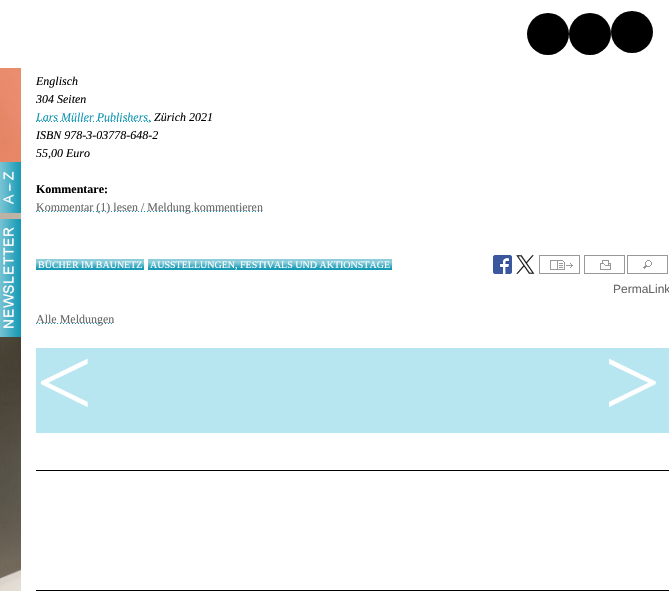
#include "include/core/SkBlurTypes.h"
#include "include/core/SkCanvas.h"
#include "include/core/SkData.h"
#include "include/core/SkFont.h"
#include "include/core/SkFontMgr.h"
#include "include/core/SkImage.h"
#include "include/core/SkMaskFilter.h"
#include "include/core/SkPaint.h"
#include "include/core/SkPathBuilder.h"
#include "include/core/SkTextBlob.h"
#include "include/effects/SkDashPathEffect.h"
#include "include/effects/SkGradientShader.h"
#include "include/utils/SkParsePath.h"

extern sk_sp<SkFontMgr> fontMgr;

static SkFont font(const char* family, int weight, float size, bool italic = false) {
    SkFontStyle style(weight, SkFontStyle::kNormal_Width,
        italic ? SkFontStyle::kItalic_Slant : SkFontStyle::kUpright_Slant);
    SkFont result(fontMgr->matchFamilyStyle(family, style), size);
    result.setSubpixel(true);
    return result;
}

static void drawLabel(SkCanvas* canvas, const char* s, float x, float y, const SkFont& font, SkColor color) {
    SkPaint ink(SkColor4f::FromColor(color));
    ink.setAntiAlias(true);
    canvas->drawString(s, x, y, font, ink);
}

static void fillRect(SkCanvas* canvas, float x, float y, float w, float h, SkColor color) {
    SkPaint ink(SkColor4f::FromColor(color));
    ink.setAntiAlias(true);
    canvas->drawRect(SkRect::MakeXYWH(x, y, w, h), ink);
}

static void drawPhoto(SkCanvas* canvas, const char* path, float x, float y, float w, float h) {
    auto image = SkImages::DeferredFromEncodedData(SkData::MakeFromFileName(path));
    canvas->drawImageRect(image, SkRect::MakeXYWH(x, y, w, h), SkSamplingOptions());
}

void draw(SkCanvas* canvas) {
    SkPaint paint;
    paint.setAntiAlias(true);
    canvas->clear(0xFFFFFFFF);
    drawPhoto(canvas, "assets/img1.png", 0, 68, 21, 523);
    paint.setColor(0xFF000000);
    canvas->drawCircle(548, 34, 21, paint);
    canvas->drawCircle(590, 34, 21, paint);
    canvas->drawCircle(632, 32, 21, paint);
    drawPhoto(canvas, "assets/img2.png", 0, 162, 21, 51);
    drawPhoto(canvas, "assets/img3.png", 0, 219, 21, 118);
    SkFont font1 = font("Liberation Serif", 400, 12, true);
    drawLabel(canvas, "Englisch", 36, 85, font1, 0xFF000000);
    drawLabel(canvas, "304 Seiten", 36, 103, font1, 0xFF000000);
    drawPhoto(canvas, "assets/img4.png", 36, 121, 115, 1);
    drawLabel(canvas, "Lars Müller Publishers,", 36, 121, font1, 0xFF0F96B3);
    drawLabel(canvas, "Zürich 2021", 154, 121, font1, 0xFF000000);
    drawLabel(canvas, "ISBN 978-3-03778-648-2", 36, 139, font1, 0xFF000000);
    drawLabel(canvas, "55,00 Euro", 36, 157, font1, 0xFF000000);
    SkFont font2 = font("Liberation Serif", 700, 12);
    drawLabel(canvas, "Kommentare:", 36, 193, font2, 0xFF000000);
    drawPhoto(canvas, "assets/img5.png", 36, 211, 226, 1);
    SkFont font3 = font("Liberation Serif", 400, 12);
    drawLabel(canvas, "Kommentar (1) lesen / Meldung kommentieren", 36, 211, font3, 0xFF666666);
    drawPhoto(canvas, "assets/img6.png", 36, 259, 108, 11);
    SkFont font4 = font("Liberation Serif", 400, 10);
    drawLabel(canvas, "BÜCHER IM BAUNETZ", 38, 268, font4, 0xFFFFFFFF);
    drawPhoto(canvas, "assets/img7.png", 148, 259, 244, 11);
    drawLabel(canvas, "AUSSTELLUNGEN, FESTIVALS UND AKTIONSTAGE", 150, 268, font4, 0xFFFFFFFF);
    drawPhoto(canvas, "assets/img8.png", 493, 255, 19, 19);
    drawPhoto(canvas, "assets/img9.png", 516, 255, 19, 19);
    drawPhoto(canvas, "assets/img10.png", 539, 255, 41, 19);
    drawPhoto(canvas, "assets/img11.png", 584, 255, 41, 19);
    drawPhoto(canvas, "assets/img12.png", 627, 255, 41, 19);
    SkFont font5 = font("Liberation Sans", 400, 12);
    drawLabel(canvas, "PermaLink", 613, 293, font5, 0xFF666666);
    drawPhoto(canvas, "assets/img13.png", 36, 323, 76, 1);
    drawLabel(canvas, "Alle Meldungen", 36, 323, font3, 0xFF666666);
    fillRect(canvas, 36, 348, 633, 85, 0xFFB7E6F0);
    SkFont font6 = font("Liberation Serif", 400, 100);
    drawLabel(canvas, "<", 36, 416, font6, 0xFFFFFFFF);
    drawLabel(canvas, ">", 604, 416, font6, 0xFFFFFFFF);
    fillRect(canvas, 36, 470, 633, 1, 0xFF000000);
    fillRect(canvas, 36, 590, 633, 1, 0xFF000000);
}
